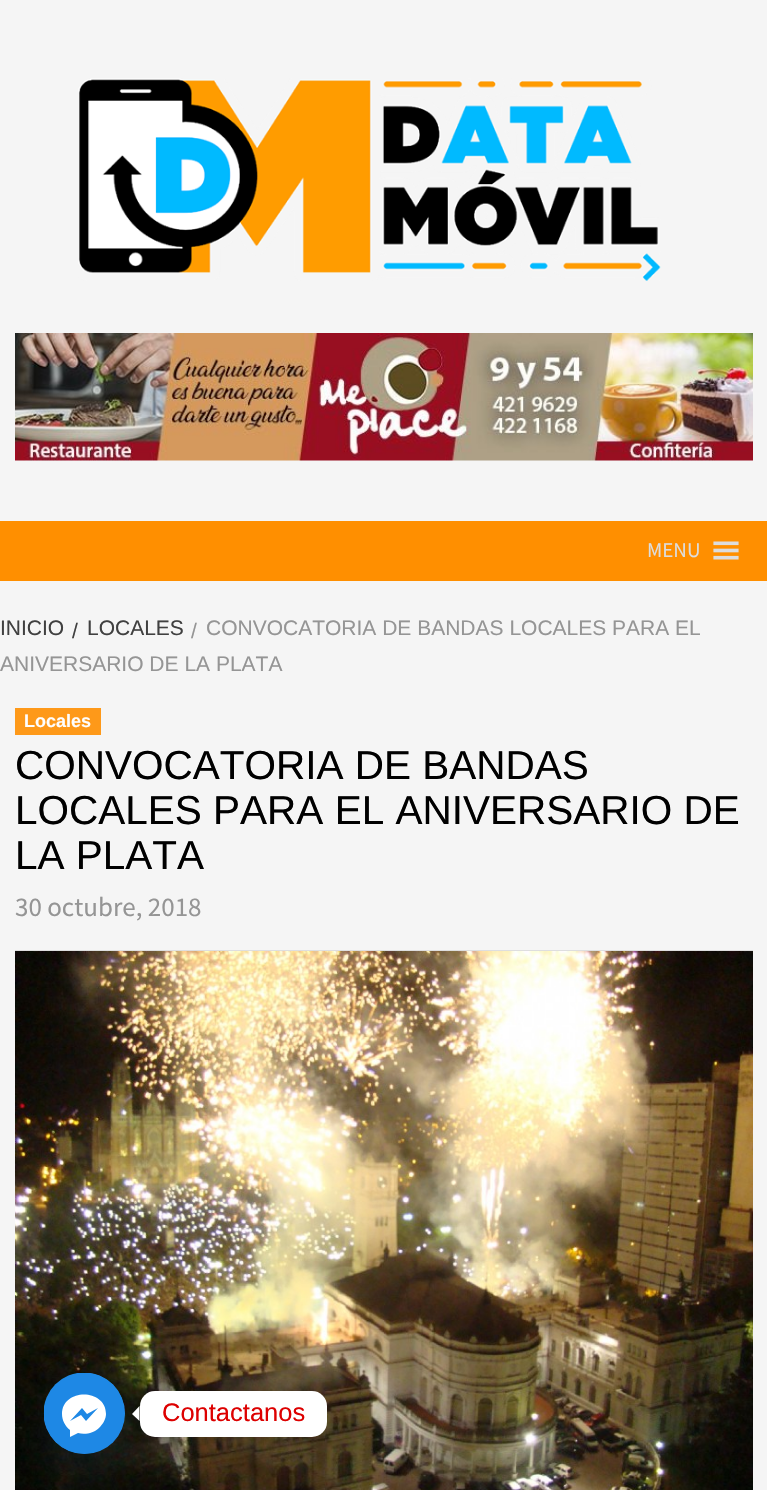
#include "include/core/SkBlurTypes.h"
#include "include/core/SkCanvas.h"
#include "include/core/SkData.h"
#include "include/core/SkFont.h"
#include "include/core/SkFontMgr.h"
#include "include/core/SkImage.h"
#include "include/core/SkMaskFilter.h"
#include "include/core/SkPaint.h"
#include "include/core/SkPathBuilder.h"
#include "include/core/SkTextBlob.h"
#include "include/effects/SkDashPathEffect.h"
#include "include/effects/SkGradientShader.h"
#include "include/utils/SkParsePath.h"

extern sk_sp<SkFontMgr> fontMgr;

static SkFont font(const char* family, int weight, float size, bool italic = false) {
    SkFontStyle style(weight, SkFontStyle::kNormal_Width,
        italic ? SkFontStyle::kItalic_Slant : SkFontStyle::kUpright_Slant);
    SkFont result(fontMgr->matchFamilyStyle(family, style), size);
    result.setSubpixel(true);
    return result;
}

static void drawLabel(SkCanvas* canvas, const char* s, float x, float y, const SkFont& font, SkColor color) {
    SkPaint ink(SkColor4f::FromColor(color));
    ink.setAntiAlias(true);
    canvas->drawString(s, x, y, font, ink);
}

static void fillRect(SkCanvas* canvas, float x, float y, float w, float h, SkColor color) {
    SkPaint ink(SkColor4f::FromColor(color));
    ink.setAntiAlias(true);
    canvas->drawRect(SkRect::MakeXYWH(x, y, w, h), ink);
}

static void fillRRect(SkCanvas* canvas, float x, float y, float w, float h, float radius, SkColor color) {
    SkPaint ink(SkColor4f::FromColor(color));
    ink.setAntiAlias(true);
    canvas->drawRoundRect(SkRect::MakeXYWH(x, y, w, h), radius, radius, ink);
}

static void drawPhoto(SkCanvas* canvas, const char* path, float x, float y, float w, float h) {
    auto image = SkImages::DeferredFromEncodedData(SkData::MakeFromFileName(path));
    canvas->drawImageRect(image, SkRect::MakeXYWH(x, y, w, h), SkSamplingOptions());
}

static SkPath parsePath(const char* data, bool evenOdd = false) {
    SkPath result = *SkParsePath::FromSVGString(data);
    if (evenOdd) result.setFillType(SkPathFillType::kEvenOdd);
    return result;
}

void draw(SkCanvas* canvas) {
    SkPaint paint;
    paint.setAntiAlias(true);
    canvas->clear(0xFFF5F5F5);
    drawPhoto(canvas, "assets/img1.png", 78, 78, 583, 203);
    drawPhoto(canvas, "assets/img2.png", 15, 333, 738, 128);
    fillRect(canvas, 0, 521, 767, 60, 0xFFFF8F00);
    SkFont font1 = font("Source Sans Pro", 400, 21);
    drawLabel(canvas, "MENU", 647, 557, font1, 0xFFDDDDDD);
    drawPhoto(canvas, "assets/img3.png", 713, 541, 26, 19);
    SkFont font2 = font("Liberation Sans", 400, 21);
    drawLabel(canvas, "/", 191, 638, font2, 0xFF959595);
    drawLabel(canvas, "CONVOCATORIA DE BANDAS LOCALES PARA EL", 206, 635, font2, 0xFF959595);
    drawLabel(canvas, "ANIVERSARIO DE LA PLATA", 0, 671, font2, 0xFF959595);
    drawLabel(canvas, "INICIO", 0, 635, font2, 0xFF404040);
    drawLabel(canvas, "/", 72, 638, font2, 0xFF404040);
    drawLabel(canvas, "LOCALES", 87, 635, font2, 0xFF404040);
    fillRect(canvas, 15, 950, 738, 1, 0xFFDEDEDE);
    fillRect(canvas, 15, 708, 86, 27, 0xFFFE9919);
    SkFont font3 = font("Liberation Sans", 700, 18);
    drawLabel(canvas, "Locales", 24, 727, font3, 0xFFFEFEFE);
    SkFont font4 = font("Liberation Sans", 400, 40.5f);
    drawLabel(canvas, "CONVOCATORIA DE BANDAS", 15, 779, font4, 0xFF000000);
    drawLabel(canvas, "LOCALES PARA EL ANIVERSARIO DE", 15, 824, font4, 0xFF000000);
    drawLabel(canvas, "LA PLATA", 15, 869, font4, 0xFF000000);
    SkFont font5 = font("Source Sans Pro", 400, 27);
    drawLabel(canvas, "30 octubre, 2018", 15, 916, font5, 0xFF959595);
    drawPhoto(canvas, "assets/img4.png", 15, 951, 738, 539);
    paint.setColor(0x2949687E);
    paint.setMaskFilter(SkMaskFilter::MakeBlur(kNormal_SkBlurStyle, 18));
    canvas->drawRoundRect(SkRect::MakeXYWH(44, 1397, 81, 81), 40.5f, 40.5f, paint);
    paint.setMaskFilter(nullptr);
    paint.setColor(0xFF1E88E5);
    canvas->drawCircle(84.5f, 1413.5f, 40.5f, paint);
    canvas->save();
    canvas->clipRect(SkRect::MakeXYWH(44, 1373, 81, 81));
    canvas->drawCircle(84, 1413, 40.5f, paint);
    canvas->restore();
    paint.setColor(0xFFFFFFFF);
    canvas->drawPath(parsePath("M62 1414C62 1388 106 1388 106 1414C106 1419 103 1424 99 1428C94 1433 85 1435 78 1433L70 1437V1430C65 1426 62 1420 62 1414ZM81 1415L86 1421L98 1408L87 1414L82 1408L70 1421Z", true), paint);
    paint.setColor(0x26000000);
    paint.setMaskFilter(SkMaskFilter::MakeBlur(kNormal_SkBlurStyle, 6));
    canvas->drawRoundRect(SkRect::MakeXYWH(140, 1392, 187, 47), 15, 15, paint);
    paint.setMaskFilter(nullptr);
    fillRRect(canvas, 140, 1391, 187, 46, 15, 0xFFFFFFFF);
    paint.setColor(0xFFFFFFFF);
    canvas->drawPath(parsePath("M139.5 1406V1421L132 1414Z"), paint);
    SkFont font6 = font("Liberation Sans", 400, 25.5f);
    drawLabel(canvas, "Contactanos", 162, 1421, font6, 0xFFDD0000);
}
